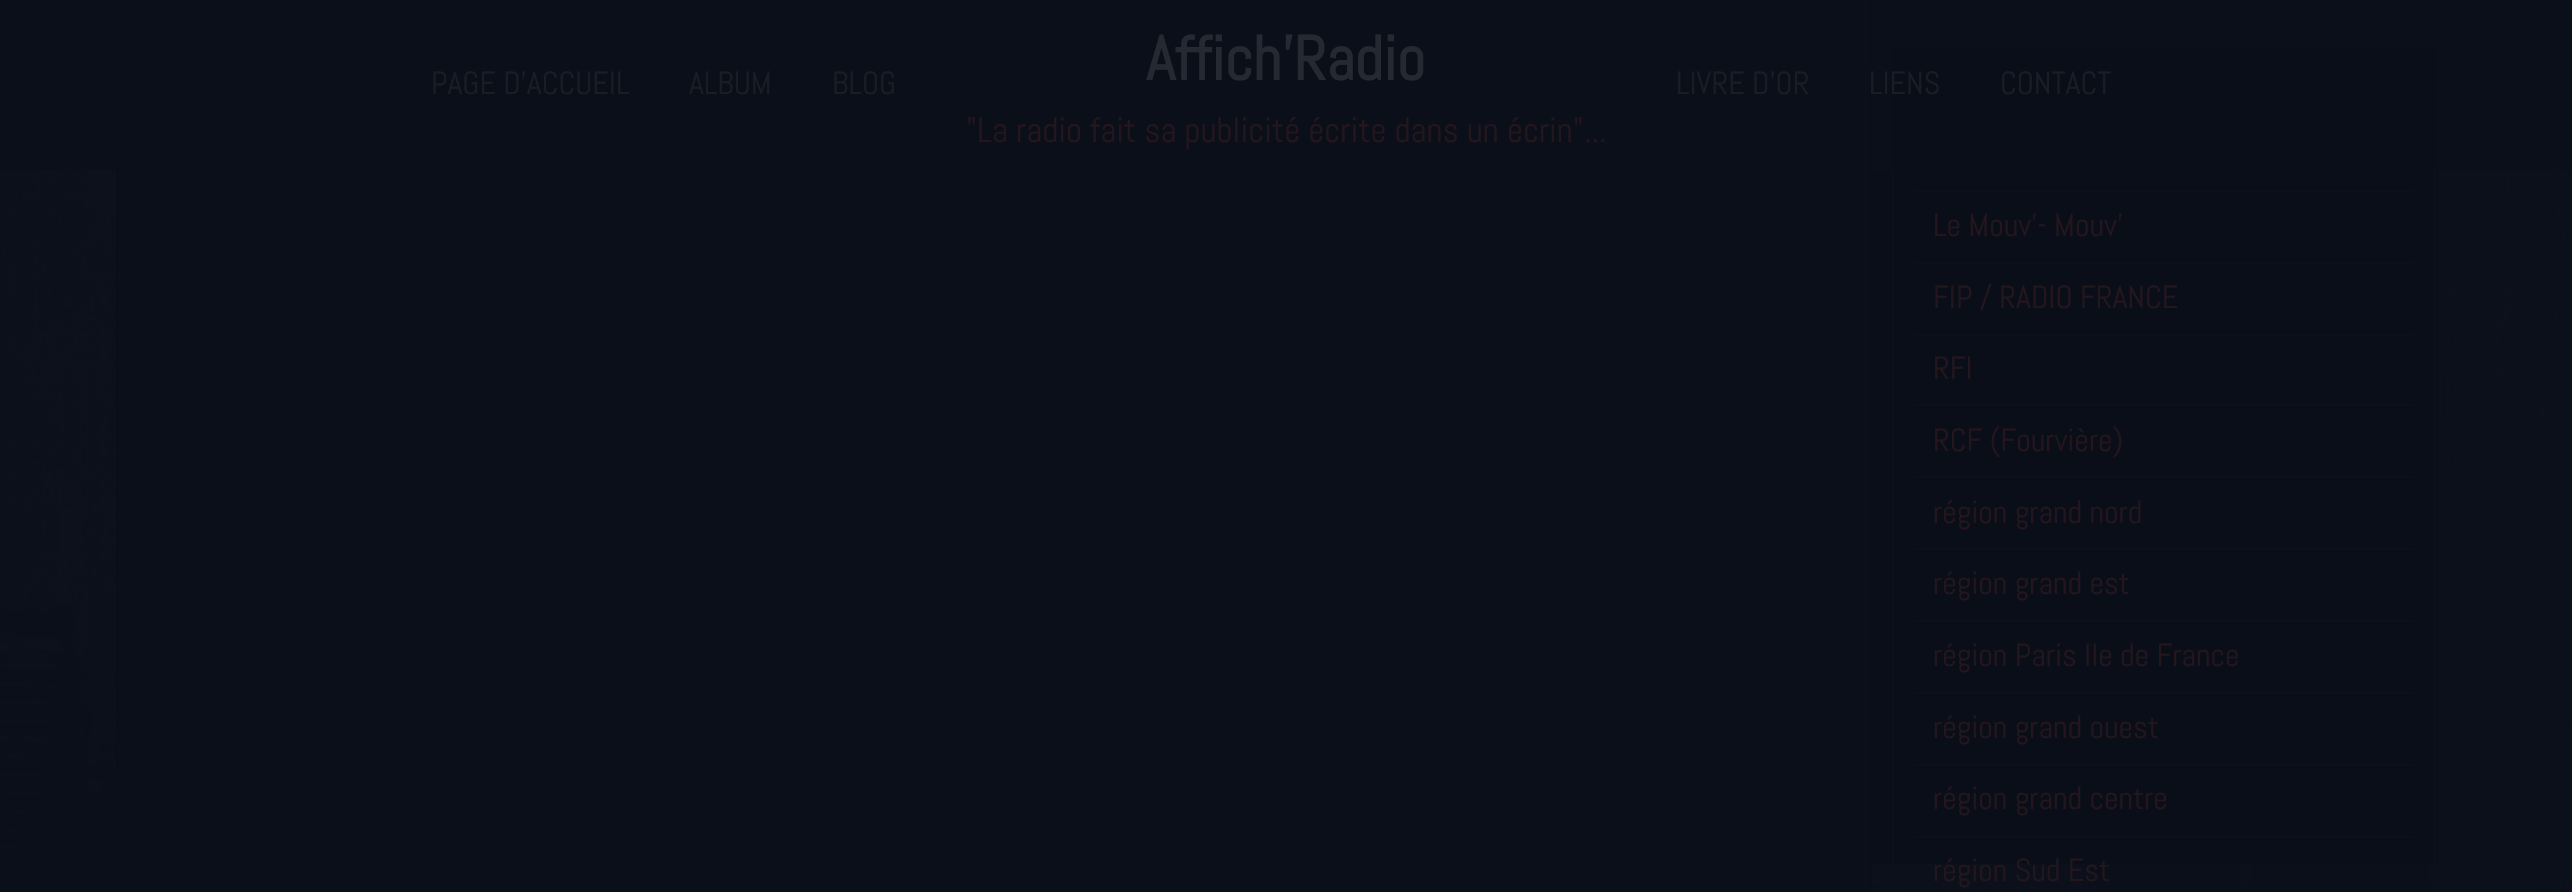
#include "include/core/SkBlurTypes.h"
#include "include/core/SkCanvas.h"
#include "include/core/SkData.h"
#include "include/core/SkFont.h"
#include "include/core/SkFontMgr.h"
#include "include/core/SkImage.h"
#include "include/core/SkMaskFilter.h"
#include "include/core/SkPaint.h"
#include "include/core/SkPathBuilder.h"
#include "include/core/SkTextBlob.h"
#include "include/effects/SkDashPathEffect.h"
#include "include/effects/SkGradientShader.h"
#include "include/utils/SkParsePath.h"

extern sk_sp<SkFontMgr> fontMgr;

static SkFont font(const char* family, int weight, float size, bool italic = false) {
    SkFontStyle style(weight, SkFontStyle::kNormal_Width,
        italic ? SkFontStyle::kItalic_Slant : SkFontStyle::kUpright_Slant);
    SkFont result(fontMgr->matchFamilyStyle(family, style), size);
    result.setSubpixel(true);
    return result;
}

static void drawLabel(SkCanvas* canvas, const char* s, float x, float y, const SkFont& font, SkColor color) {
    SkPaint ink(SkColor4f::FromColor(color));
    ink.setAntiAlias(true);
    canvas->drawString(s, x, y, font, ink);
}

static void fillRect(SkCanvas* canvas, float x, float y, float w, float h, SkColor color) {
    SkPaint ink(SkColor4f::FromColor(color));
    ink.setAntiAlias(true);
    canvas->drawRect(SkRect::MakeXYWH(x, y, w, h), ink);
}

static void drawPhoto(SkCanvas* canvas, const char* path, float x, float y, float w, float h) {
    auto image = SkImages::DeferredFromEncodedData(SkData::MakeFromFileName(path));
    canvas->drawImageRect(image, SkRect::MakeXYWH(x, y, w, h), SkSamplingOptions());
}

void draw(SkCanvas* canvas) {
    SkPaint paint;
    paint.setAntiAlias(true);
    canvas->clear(0xFF0B0F1A);
    drawPhoto(canvas, "assets/img1.png", 0, 170, 2572, 722);
    fillRect(canvas, 1872, 170, 567, 694, 0xFF0A0E19);
    paint.setStroke(true);
    paint.setStrokeWidth(2);
    paint.setColor(0xFF0B101C);
    canvas->drawRect(SkRect::MakeXYWH(1893, -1, 542, 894), paint);
    paint.setStroke(false);
    {
        const SkColor colors[] = {0xFF0A0F1A, 0xFF0A0E19};
        const float stops[] = {0, 1};
        const SkPoint ends[] = {{1286, -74}, {1286, 170}};
        paint.setShader(SkGradientShader::MakeLinear(ends, colors, stops, 2, SkTileMode::kClamp));
        paint.setAlpha(255);
    }
    canvas->drawRect(SkRect::MakeXYWH(1892, 48, 544, 122), paint);
    fillRect(canvas, 118, 170, 1752, 722, 0xFF0A0F1A);
    paint.setStroke(true);
    paint.setShader(nullptr);
    paint.setColor(0xFF0A0E19);
    canvas->drawRect(SkRect::MakeXYWH(117, -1, 1754, 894), paint);
    SkFont font1 = font("Abel", 400, 32);
    drawLabel(canvas, "PAGE D'ACCUEIL", 431, 94, font1, 0xFF1C1D24);
    drawLabel(canvas, "ALBUM", 689, 94, font1, 0xFF1C1D24);
    drawLabel(canvas, "BLOG", 832, 94, font1, 0xFF1C1D24);
    SkFont font2 = font("Abel", 700, 62.5f);
    drawLabel(canvas, "Affich'Radio", 1146, 80, font2, 0xFF252932);
    SkFont font3 = font("Abel", 400, 35.25f);
    drawLabel(canvas, "\"La radio fait sa publicité écrite dans un écrin\"...", 966, 142, font3, 0xFF25161D);
    drawLabel(canvas, "LIVRE D'OR", 1676, 94, font1, 0xFF1C1D24);
    drawLabel(canvas, "LIENS", 1869, 94, font1, 0xFF1C1D24);
    drawLabel(canvas, "CONTACT", 2000, 94, font1, 0xFF1C1D24);
    fillRect(canvas, 1914, 190, 500, 2, 0xFF0B101C);
    fillRect(canvas, 1914, 262, 500, 2, 0xFF0B101C);
    drawLabel(canvas, "Le Mouv'- Mouv'", 1933, 236, font1, 0xFF25161D);
    fillRect(canvas, 1914, 334, 500, 2, 0xFF0B101C);
    drawLabel(canvas, "FIP / RADIO FRANCE", 1933, 308, font1, 0xFF25161D);
    fillRect(canvas, 1914, 404, 500, 2, 0xFF0B101C);
    drawLabel(canvas, "RFI", 1933, 379, font1, 0xFF25161D);
    fillRect(canvas, 1914, 476, 500, 2, 0xFF0B101C);
    drawLabel(canvas, "RCF (Fourvière)", 1933, 451, font1, 0xFF25161D);
    fillRect(canvas, 1914, 548, 500, 2, 0xFF0B101C);
    drawLabel(canvas, "région grand nord", 1933, 523, font1, 0xFF25161D);
    fillRect(canvas, 1914, 620, 500, 2, 0xFF0B101C);
    drawLabel(canvas, "région grand est", 1933, 594, font1, 0xFF25161D);
    fillRect(canvas, 1914, 692, 500, 2, 0xFF0B101C);
    drawLabel(canvas, "région Paris Ile de France", 1933, 666, font1, 0xFF25161D);
    fillRect(canvas, 1914, 764, 500, 2, 0xFF0B101C);
    drawLabel(canvas, "région grand ouest", 1933, 738, font1, 0xFF25161D);
    fillRect(canvas, 1914, 836, 500, 2, 0xFF0B101C);
    drawLabel(canvas, "région grand centre", 1933, 809, font1, 0xFF25161D);
    drawLabel(canvas, "région Sud Est", 1933, 881, font1, 0xFF25161D);
}
